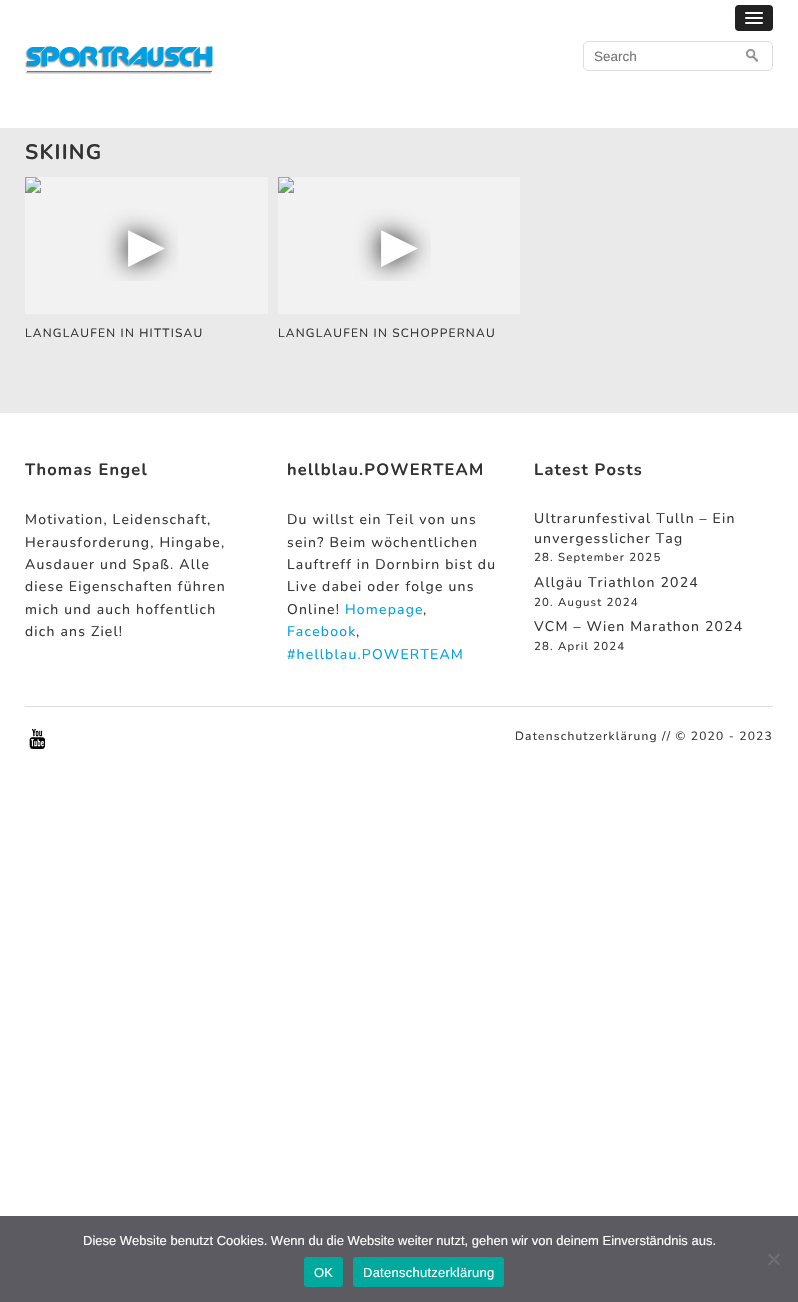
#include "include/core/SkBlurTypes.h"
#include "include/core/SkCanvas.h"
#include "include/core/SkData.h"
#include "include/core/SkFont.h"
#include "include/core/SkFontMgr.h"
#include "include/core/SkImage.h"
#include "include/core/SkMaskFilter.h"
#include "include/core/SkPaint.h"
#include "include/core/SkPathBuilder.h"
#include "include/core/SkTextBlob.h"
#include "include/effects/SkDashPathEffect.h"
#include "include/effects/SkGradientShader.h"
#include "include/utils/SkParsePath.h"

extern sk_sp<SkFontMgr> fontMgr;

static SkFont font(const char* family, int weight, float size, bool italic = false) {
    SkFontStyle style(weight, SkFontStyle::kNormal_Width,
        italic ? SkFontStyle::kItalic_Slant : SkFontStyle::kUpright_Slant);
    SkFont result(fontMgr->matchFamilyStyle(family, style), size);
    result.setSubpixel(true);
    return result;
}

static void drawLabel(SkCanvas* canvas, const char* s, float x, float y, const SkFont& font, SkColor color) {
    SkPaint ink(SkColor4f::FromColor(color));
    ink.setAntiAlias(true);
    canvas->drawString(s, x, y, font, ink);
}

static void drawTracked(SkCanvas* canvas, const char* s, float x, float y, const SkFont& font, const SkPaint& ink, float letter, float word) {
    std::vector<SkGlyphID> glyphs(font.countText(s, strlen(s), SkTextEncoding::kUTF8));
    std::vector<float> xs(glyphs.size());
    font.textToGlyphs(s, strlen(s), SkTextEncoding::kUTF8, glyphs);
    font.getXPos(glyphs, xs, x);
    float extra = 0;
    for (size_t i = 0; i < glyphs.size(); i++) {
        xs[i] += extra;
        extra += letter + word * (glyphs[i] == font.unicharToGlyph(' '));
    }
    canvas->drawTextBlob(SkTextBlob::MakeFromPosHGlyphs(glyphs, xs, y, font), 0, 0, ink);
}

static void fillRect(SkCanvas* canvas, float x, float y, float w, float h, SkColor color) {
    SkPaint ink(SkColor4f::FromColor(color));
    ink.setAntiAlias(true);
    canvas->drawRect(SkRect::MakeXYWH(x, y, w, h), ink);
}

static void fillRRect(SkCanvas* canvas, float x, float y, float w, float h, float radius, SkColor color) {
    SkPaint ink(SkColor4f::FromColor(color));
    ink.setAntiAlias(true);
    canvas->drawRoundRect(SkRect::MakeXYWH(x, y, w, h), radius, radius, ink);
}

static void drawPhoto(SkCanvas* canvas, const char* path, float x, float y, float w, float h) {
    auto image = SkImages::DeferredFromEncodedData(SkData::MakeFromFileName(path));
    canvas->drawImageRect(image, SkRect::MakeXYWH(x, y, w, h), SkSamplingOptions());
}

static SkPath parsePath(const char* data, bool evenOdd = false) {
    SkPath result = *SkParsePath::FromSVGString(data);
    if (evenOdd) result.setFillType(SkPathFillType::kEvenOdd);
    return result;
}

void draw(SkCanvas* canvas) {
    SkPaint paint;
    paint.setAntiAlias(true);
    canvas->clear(0xFFFFFFFF);
    fillRRect(canvas, 735, 5, 38, 26, 4, 0xFF222222);
    paint.setColor(0xFF1A1A1A);
    canvas->drawPath(parsePath("M745 13.5C744 15.5 748.5 15 748.5 15H759.5C759.5 15 764 15.5 763 13.5C762 14.5 755.5 14 754 14C752.5 14 746 14.5 745 13.5Z"), paint);
    fillRRect(canvas, 745, 12, 18, 2, 1, 0xFFFFFFFF);
    canvas->drawPath(parsePath("M745 18.5C744 20.5 748.5 20 748.5 20H759.5C759.5 20 764 20.5 763 18.5C762 19.5 755.5 19 754 19C752.5 19 746 19.5 745 18.5Z"), paint);
    fillRRect(canvas, 745, 17, 18, 2, 1, 0xFFFFFFFF);
    canvas->drawPath(parsePath("M745 23.5C744 25.5 748.5 25 748.5 25H759.5C759.5 25 764 25.5 763 23.5C762 24.5 755.5 24 754 24C752.5 24 746 24.5 745 23.5Z"), paint);
    fillRRect(canvas, 745, 22, 18, 2, 1, 0xFFFFFFFF);
    drawPhoto(canvas, "assets/img1.png", 25, 46, 188, 28);
    paint.setStroke(true);
    paint.setStrokeWidth(1);
    paint.setColor(0xFFDDDDDD);
    canvas->drawRoundRect(SkRect::MakeXYWH(583.5f, 41.5f, 189, 29), 4.5f, 4.5f, paint);
    SkFont font1 = font("Liberation Sans", 400, 13.5f);
    drawLabel(canvas, "Search", 594, 61, font1, 0xFF757575);
    drawPhoto(canvas, "assets/img2.png", 746, 49, 12, 13);
    fillRect(canvas, 0, 128, 798, 285, 0xFFEAEAEA);
    SkFont font2 = font("Nunito", 700, 21);
    paint.setStroke(false);
    paint.setColor(0xFF333333);
    drawTracked(canvas, "SKIING", 25, 159, font2, paint, 1.2f, 0);
    fillRect(canvas, 25, 177, 243, 137, 0xFFF2F2F2);
    drawPhoto(canvas, "assets/img3.png", 25, 177, 153, 104);
    SkFont font3 = font("Nunito", 400, 12);
    drawTracked(canvas, "LANGLAUFEN IN HITTISAU", 25, 337, font3, paint, 1.2f, 0);
    fillRect(canvas, 278, 177, 242, 137, 0xFFF2F2F2);
    drawPhoto(canvas, "assets/img3.png", 278, 177, 153, 104);
    drawTracked(canvas, "LANGLAUFEN IN SCHOPPERNAU", 278, 337, font3, paint, 1.2f, 0);
    SkFont font4 = font("Nunito", 700, 16.4f);
    drawTracked(canvas, "Thomas Engel", 25, 475, font4, paint, 1.2f, 0);
    SkFont font5 = font("Nunito", 400, 14);
    drawTracked(canvas, "Motivation, Leidenschaft,", 25, 524, font5, paint, 1.2f, 0);
    drawTracked(canvas, "Herausforderung, Hingabe,", 25, 547, font5, paint, 1.2f, 0);
    drawTracked(canvas, "Ausdauer und Spaß. Alle", 25, 569, font5, paint, 1.2f, 0);
    drawTracked(canvas, "diese Eigenschaften führen", 25, 591, font5, paint, 1.2f, 0);
    drawTracked(canvas, "mich und auch hoffentlich", 25, 614, font5, paint, 1.2f, 0);
    drawTracked(canvas, "dich ans Ziel!", 25, 636, font5, paint, 1.2f, 0);
    drawTracked(canvas, "hellblau.POWERTEAM", 287, 475, font4, paint, 1.2f, 0);
    drawTracked(canvas, "Du willst ein Teil von uns", 287, 524, font5, paint, 1.2f, 0);
    drawTracked(canvas, "sein? Beim wöchentlichen", 287, 547, font5, paint, 1.2f, 0);
    drawTracked(canvas, "Lauftreff in Dornbirn bist du", 287, 569, font5, paint, 1.2f, 0);
    drawTracked(canvas, "Live dabei oder folge uns", 287, 591, font5, paint, 1.2f, 0);
    drawTracked(canvas, "Online!", 287, 614, font5, paint, 1.2f, 0);
    paint.setColor(0xFF009FE3);
    drawTracked(canvas, "Homepage", 345, 614, font5, paint, 1.2f, 0);
    paint.setColor(0xFF333333);
    drawTracked(canvas, ",", 423, 614, font5, paint, 1.2f, 0);
    paint.setColor(0xFF009FE3);
    drawTracked(canvas, "Facebook", 287, 636, font5, paint, 1.2f, 0);
    paint.setColor(0xFF333333);
    drawTracked(canvas, ",", 356, 636, font5, paint, 1.2f, 0);
    paint.setColor(0xFF009FE3);
    drawTracked(canvas, "#hellblau.POWERTEAM", 287, 659, font5, paint, 1.2f, 0);
    paint.setColor(0xFF333333);
    drawTracked(canvas, "Latest Posts", 534, 475, font4, paint, 1.2f, 0);
    drawTracked(canvas, "Ultrarunfestival Tulln – Ein", 534, 523, font5, paint, 1.2f, 0);
    drawTracked(canvas, "unvergesslicher Tag", 534, 543, font5, paint, 1.2f, 0);
    SkFont font6 = font("Nunito", 400, 11.4f);
    drawTracked(canvas, "28. September 2025", 534, 561, font6, paint, 1.2f, 0);
    drawTracked(canvas, "Allgäu Triathlon 2024", 534, 587, font5, paint, 1.2f, 0);
    drawTracked(canvas, "20. August 2024", 534, 606, font6, paint, 1.2f, 0);
    drawTracked(canvas, "VCM – Wien Marathon 2024", 534, 631, font5, paint, 1.2f, 0);
    drawTracked(canvas, "28. April 2024", 534, 650, font6, paint, 1.2f, 0);
    fillRect(canvas, 25, 706, 748, 1, 0xFFDDDDDD);
    drawPhoto(canvas, "assets/img4.png", 29, 729, 16, 20);
    drawTracked(canvas, "Datenschutzerklärung // © 2020 - 2023", 515, 740, font3, paint, 1.2f, 0);
    fillRect(canvas, 0, 1216, 798, 86, 0xFF5B5B61);
    SkFont font7 = font("Liberation Sans", 400, 13);
    drawLabel(canvas, "Diese Website benutzt Cookies. Wenn du die Website weiter nutzt, gehen wir von deinem Einverständnis aus.", 83, 1245, font7, 0xFFFFFFFF);
    paint.setColor(0xFF6E6E71);
    canvas->drawPath(parsePath("M778.5 1253.5L780 1255L769.5 1265.5L768 1264Z"), paint);
    canvas->drawPath(parsePath("M768 1255L769.5 1253.5L780 1264L778.5 1265.5Z"), paint);
    fillRRect(canvas, 304, 1257, 39, 30, 3, 0xFF00A99D);
    paint.setColor(0xFFFFFFFF);
    drawTracked(canvas, "OK", 314, 1277, font7, paint, 0.25f, 0);
    fillRRect(canvas, 353, 1257, 151, 30, 3, 0xFF00A99D);
    drawTracked(canvas, "Datenschutzerklärung", 363, 1277, font7, paint, 0.25f, 0);
}
